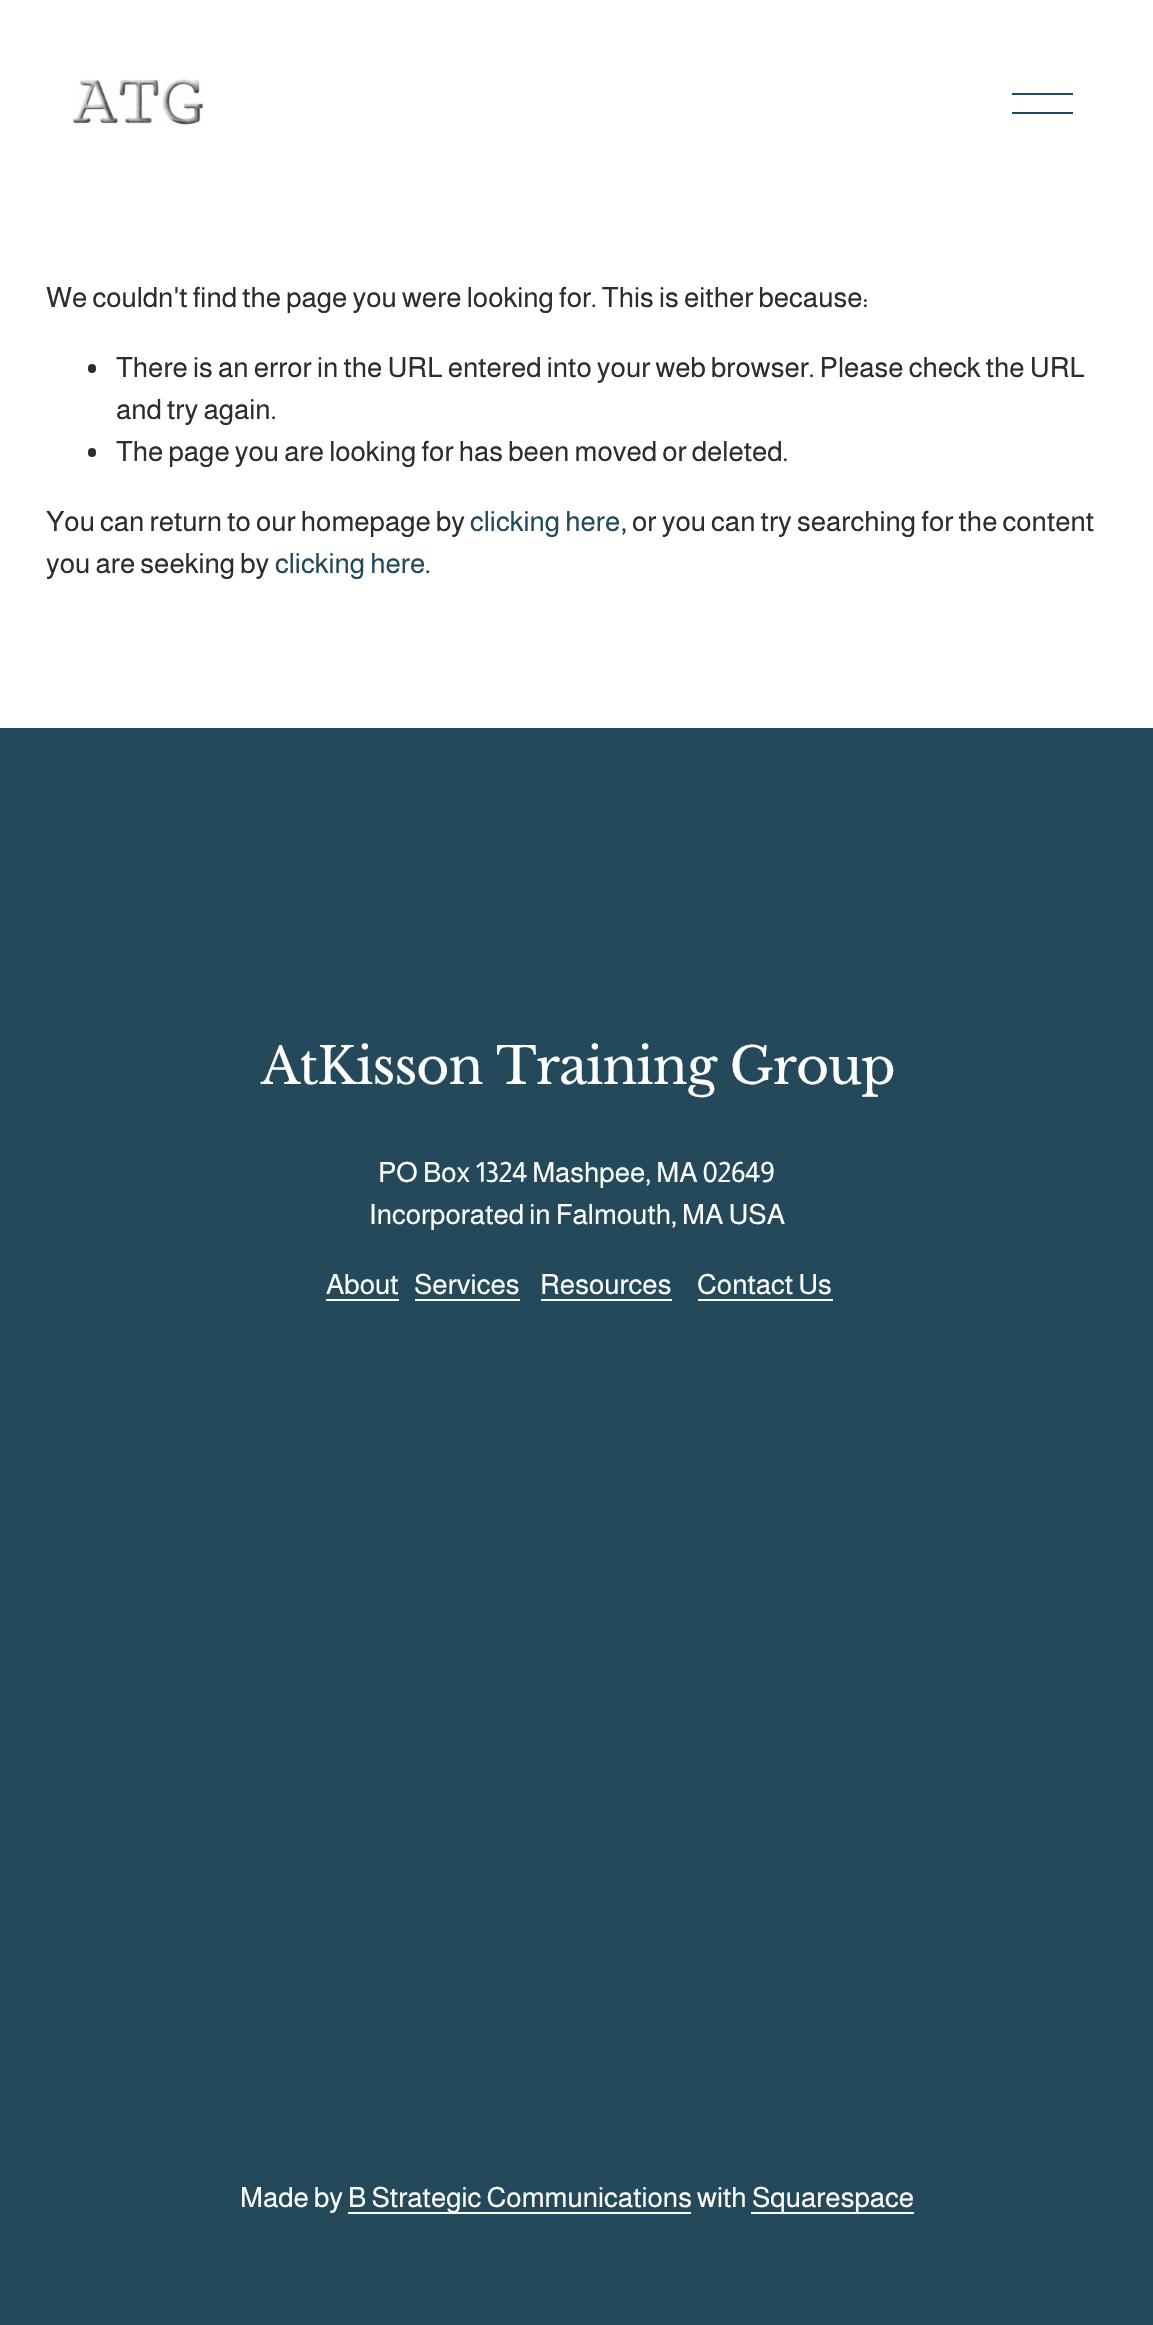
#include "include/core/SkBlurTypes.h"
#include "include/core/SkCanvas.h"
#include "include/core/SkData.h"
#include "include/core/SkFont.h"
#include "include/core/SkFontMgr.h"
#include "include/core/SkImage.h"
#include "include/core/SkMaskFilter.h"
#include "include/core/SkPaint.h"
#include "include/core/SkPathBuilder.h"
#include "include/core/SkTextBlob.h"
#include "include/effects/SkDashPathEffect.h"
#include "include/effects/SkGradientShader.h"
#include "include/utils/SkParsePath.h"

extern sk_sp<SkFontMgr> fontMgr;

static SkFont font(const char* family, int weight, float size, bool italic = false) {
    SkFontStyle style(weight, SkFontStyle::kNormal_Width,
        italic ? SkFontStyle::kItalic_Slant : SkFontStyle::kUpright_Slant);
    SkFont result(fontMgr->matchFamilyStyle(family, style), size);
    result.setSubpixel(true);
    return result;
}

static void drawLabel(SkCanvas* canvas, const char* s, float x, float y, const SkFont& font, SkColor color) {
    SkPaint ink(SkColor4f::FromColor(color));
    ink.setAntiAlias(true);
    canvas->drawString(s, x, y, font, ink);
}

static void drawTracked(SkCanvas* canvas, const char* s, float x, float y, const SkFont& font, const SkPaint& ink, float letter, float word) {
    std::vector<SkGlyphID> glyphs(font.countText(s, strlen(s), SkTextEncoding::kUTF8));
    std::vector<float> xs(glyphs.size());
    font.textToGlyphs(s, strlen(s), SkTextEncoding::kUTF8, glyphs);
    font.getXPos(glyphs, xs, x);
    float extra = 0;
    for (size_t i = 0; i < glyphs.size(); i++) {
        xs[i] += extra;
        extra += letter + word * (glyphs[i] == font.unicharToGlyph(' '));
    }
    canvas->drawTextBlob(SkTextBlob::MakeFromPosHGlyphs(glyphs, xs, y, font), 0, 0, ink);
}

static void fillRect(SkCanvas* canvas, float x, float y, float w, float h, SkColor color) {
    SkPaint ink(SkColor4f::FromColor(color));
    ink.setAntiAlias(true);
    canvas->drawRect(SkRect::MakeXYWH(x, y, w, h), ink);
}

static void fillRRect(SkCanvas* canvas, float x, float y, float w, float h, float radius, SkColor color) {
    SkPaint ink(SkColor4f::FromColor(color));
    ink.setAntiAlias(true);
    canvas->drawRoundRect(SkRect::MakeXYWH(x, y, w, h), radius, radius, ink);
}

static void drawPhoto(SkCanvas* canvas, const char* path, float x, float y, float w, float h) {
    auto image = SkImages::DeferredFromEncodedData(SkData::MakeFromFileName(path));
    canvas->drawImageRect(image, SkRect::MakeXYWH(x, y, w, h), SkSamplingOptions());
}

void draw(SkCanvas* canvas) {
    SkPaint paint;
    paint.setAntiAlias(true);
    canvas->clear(0xFFFFFFFF);
    drawPhoto(canvas, "assets/img1.png", 72, 79, 132, 46);
    fillRect(canvas, 1012, 93, 61, 2, 0xFF23495B);
    fillRect(canvas, 1012, 112, 61, 2, 0xFF23495B);
    SkFont font1 = font("Almarai", 400, 28);
    drawLabel(canvas, "We couldn't find the page you were looking for. This is either because:", 46, 307, font1, 0xFF2D2D2A);
    fillRRect(canvas, 88, 364, 8, 9, 4, 0xFF2D2D2A);
    drawLabel(canvas, "There is an error in the URL entered into your web browser. Please check the URL", 116, 377, font1, 0xFF2D2D2A);
    drawLabel(canvas, "and try again.", 116, 419, font1, 0xFF2D2D2A);
    fillRRect(canvas, 88, 448, 8, 9, 4, 0xFF2D2D2A);
    drawLabel(canvas, "The page you are looking for has been moved or deleted.", 116, 461, font1, 0xFF2D2D2A);
    drawLabel(canvas, "You can return to our homepage by", 46, 531, font1, 0xFF2D2D2A);
    drawLabel(canvas, "clicking here", 470, 531, font1, 0xFF23495B);
    drawLabel(canvas, ", or you can try searching for the content", 621, 531, font1, 0xFF2D2D2A);
    drawLabel(canvas, "you are seeking by", 46, 573, font1, 0xFF2D2D2A);
    drawLabel(canvas, "clicking here", 275, 573, font1, 0xFF23495B);
    drawLabel(canvas, ".", 425, 573, font1, 0xFF2D2D2A);
    fillRect(canvas, 0, 728, 1153, 1597, 0xFF23495B);
    SkFont font2 = font("Libre Baskerville", 400, 50.75f);
    paint.setColor(0xFFFFFFFF);
    drawTracked(canvas, "AtKisson Training Group", 261, 1084, font2, paint, -1, 0);
    drawLabel(canvas, "PO Box 1324 Mashpee, MA 02649", 378, 1182, font1, 0xFFFFFFFF);
    drawLabel(canvas, "Incorporated in Falmouth, MA USA", 369, 1224, font1, 0xFFFFFFFF);
    drawLabel(canvas, "About", 326, 1294, font1, 0xFFFFFFFF);
    fillRect(canvas, 326, 1299, 73, 2, 0xFFFFFFFF);
    drawLabel(canvas, "Services", 414, 1294, font1, 0xFFFFFFFF);
    fillRect(canvas, 415, 1299, 105, 2, 0xFFFFFFFF);
    drawLabel(canvas, "Resources", 540, 1294, font1, 0xFFFFFFFF);
    fillRect(canvas, 541, 1299, 131, 2, 0xFFFFFFFF);
    drawLabel(canvas, "Contact Us", 697, 1294, font1, 0xFFFFFFFF);
    fillRect(canvas, 698, 1299, 135, 2, 0xFFFFFFFF);
    drawLabel(canvas, "Made by", 240, 2207, font1, 0xFFFFFFFF);
    fillRect(canvas, 348, 2212, 343, 2, 0xFFFFFFFF);
    drawLabel(canvas, "B Strategic Communications with", 348, 2207, font1, 0xFFFFFFFF);
    fillRect(canvas, 751, 2212, 163, 2, 0xFFFFFFFF);
    drawLabel(canvas, "Squarespace", 752, 2207, font1, 0xFFFFFFFF);
}
